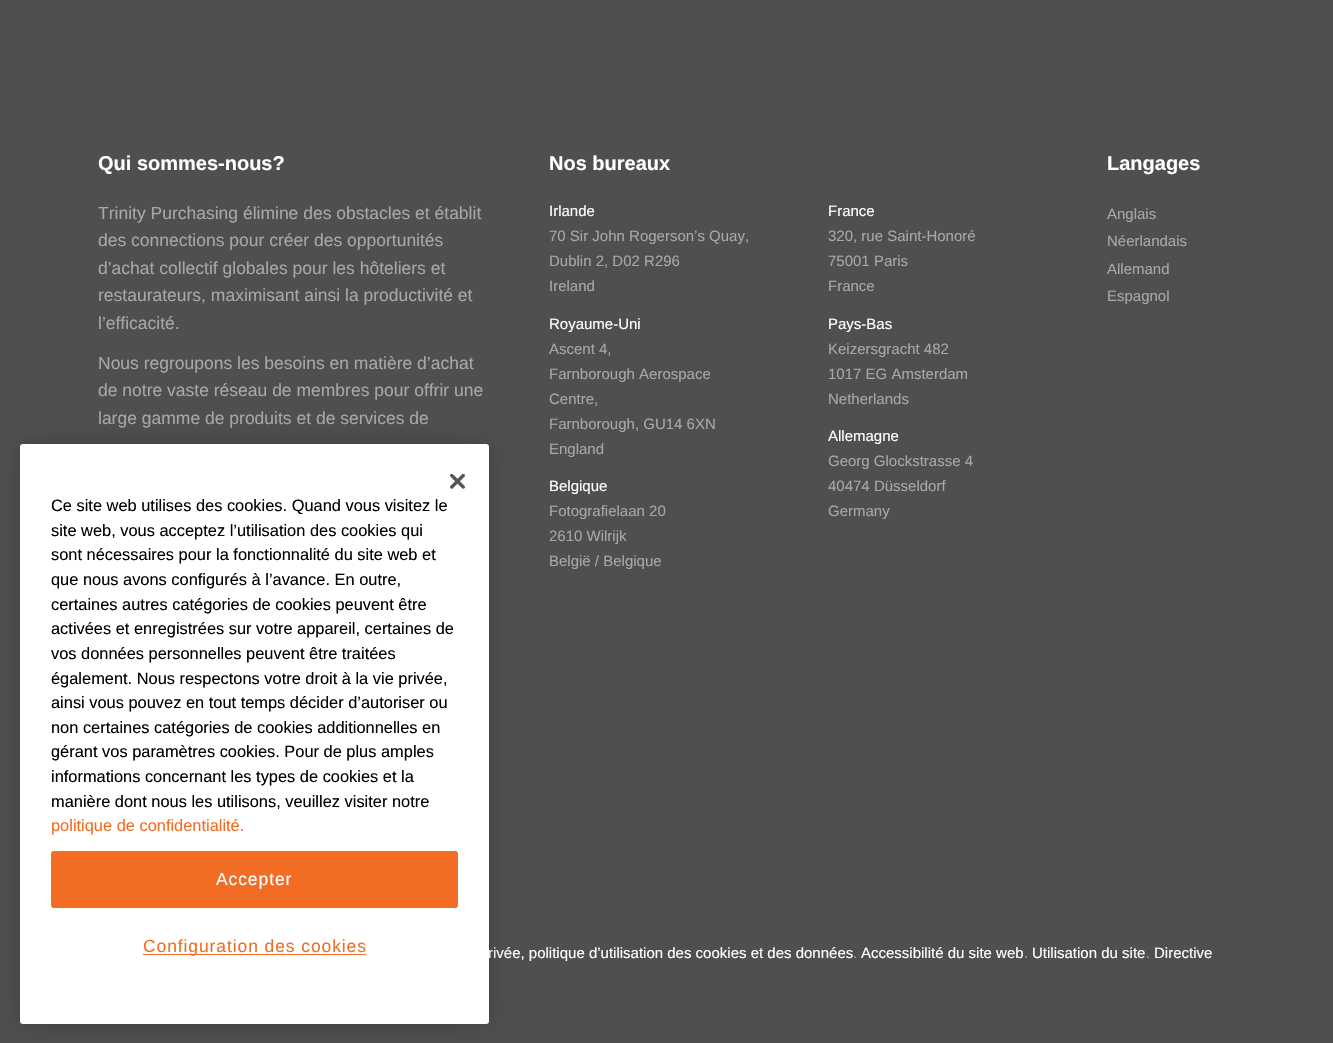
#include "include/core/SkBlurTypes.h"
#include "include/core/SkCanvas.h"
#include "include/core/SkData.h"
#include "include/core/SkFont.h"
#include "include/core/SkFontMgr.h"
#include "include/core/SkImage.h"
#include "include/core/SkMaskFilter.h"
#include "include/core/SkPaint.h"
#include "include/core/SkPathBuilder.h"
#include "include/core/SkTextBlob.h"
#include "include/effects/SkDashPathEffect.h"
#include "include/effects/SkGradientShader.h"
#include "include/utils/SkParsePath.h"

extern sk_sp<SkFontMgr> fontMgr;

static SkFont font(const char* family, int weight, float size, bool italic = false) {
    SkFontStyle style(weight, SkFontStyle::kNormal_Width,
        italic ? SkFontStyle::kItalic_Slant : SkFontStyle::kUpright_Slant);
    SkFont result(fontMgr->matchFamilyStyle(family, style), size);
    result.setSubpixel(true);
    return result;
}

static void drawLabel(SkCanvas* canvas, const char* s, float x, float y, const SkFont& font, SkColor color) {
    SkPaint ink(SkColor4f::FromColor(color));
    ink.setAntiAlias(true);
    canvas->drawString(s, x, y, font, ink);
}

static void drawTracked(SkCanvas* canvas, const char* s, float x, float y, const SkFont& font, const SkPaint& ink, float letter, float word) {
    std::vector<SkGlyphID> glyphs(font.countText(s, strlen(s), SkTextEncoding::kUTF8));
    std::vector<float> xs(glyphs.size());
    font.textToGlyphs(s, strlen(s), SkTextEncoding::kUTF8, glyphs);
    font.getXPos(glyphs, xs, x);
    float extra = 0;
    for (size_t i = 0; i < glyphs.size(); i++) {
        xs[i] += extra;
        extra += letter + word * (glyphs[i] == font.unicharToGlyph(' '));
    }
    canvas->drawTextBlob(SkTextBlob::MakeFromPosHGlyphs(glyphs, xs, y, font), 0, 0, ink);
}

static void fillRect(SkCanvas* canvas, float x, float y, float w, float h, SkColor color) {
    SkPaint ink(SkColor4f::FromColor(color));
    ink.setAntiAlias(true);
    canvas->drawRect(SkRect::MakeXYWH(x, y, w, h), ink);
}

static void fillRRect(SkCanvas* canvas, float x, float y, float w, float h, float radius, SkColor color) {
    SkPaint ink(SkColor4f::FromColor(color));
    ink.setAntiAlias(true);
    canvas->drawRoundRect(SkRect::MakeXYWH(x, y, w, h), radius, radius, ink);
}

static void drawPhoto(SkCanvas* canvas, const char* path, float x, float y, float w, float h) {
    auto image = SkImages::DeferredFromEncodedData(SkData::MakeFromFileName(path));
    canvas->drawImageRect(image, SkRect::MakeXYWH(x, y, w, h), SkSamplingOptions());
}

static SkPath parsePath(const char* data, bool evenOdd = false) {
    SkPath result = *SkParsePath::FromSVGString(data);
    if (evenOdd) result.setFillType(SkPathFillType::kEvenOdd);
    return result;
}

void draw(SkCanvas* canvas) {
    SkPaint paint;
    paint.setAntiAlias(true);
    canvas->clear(0xFFFFFFFF);
    paint.setColor(0xFF4F4F4F);
    canvas->drawPath(parsePath("M0-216V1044H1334V-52L1-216Z"), paint);
    SkFont font1 = font("Liberation Sans", 700, 20);
    drawLabel(canvas, "Qui sommes-nous?", 98, 170, font1, 0xFFFFFFFF);
    SkFont font2 = font("Liberation Sans", 400, 17.5f);
    drawLabel(canvas, "Trinity Purchasing élimine des obstacles et établit", 98, 219, font2, 0xFFA7A7A7);
    drawLabel(canvas, "des connections pour créer des opportunités", 98, 246, font2, 0xFFA7A7A7);
    drawLabel(canvas, "d’achat collectif globales pour les hôteliers et", 98, 274, font2, 0xFFA7A7A7);
    drawLabel(canvas, "restaurateurs, maximisant ainsi la productivité et", 98, 301, font2, 0xFFA7A7A7);
    drawLabel(canvas, "l’efficacité.", 98, 329, font2, 0xFFA7A7A7);
    drawLabel(canvas, "Nous regroupons les besoins en matière d’achat", 98, 369, font2, 0xFFA7A7A7);
    drawLabel(canvas, "de notre vaste réseau de membres pour offrir une", 98, 396, font2, 0xFFA7A7A7);
    drawLabel(canvas, "large gamme de produits et de services de", 98, 424, font2, 0xFFA7A7A7);
    drawLabel(canvas, "Nos bureaux", 549, 170, font1, 0xFFFFFFFF);
    SkFont font3 = font("Liberation Sans", 400, 15);
    drawLabel(canvas, "Irlande", 549, 216, font3, 0xFFFFFFFF);
    drawLabel(canvas, "70 Sir John Rogerson’s Quay,", 549, 241, font3, 0xFFA7A7A7);
    drawLabel(canvas, "Dublin 2, D02 R296", 549, 266, font3, 0xFFA7A7A7);
    drawLabel(canvas, "Ireland", 549, 291, font3, 0xFFA7A7A7);
    drawLabel(canvas, "Royaume-Uni", 549, 329, font3, 0xFFFFFFFF);
    drawLabel(canvas, "Ascent 4,", 549, 354, font3, 0xFFA7A7A7);
    drawLabel(canvas, "Farnborough Aerospace", 549, 379, font3, 0xFFA7A7A7);
    drawLabel(canvas, "Centre,", 549, 404, font3, 0xFFA7A7A7);
    drawLabel(canvas, "Farnborough, GU14 6XN", 549, 429, font3, 0xFFA7A7A7);
    drawLabel(canvas, "England", 549, 454, font3, 0xFFA7A7A7);
    drawLabel(canvas, "Belgique", 549, 491, font3, 0xFFFFFFFF);
    drawLabel(canvas, "Fotografielaan 20", 549, 516, font3, 0xFFA7A7A7);
    drawLabel(canvas, "2610 Wilrijk", 549, 541, font3, 0xFFA7A7A7);
    drawLabel(canvas, "België / Belgique", 549, 566, font3, 0xFFA7A7A7);
    drawLabel(canvas, "France", 828, 216, font3, 0xFFFFFFFF);
    drawLabel(canvas, "320, rue Saint-Honoré", 828, 241, font3, 0xFFA7A7A7);
    drawLabel(canvas, "75001 Paris", 828, 266, font3, 0xFFA7A7A7);
    drawLabel(canvas, "France", 828, 291, font3, 0xFFA7A7A7);
    drawLabel(canvas, "Pays-Bas", 828, 329, font3, 0xFFFFFFFF);
    drawLabel(canvas, "Keizersgracht 482", 828, 354, font3, 0xFFA7A7A7);
    drawLabel(canvas, "1017 EG Amsterdam", 828, 379, font3, 0xFFA7A7A7);
    drawLabel(canvas, "Netherlands", 828, 404, font3, 0xFFA7A7A7);
    drawLabel(canvas, "Allemagne", 828, 441, font3, 0xFFFFFFFF);
    drawLabel(canvas, "Georg Glockstrasse 4", 828, 466, font3, 0xFFA7A7A7);
    drawLabel(canvas, "40474 Düsseldorf", 828, 491, font3, 0xFFA7A7A7);
    drawLabel(canvas, "Germany", 828, 516, font3, 0xFFA7A7A7);
    drawLabel(canvas, "Langages", 1107, 170, font1, 0xFFFFFFFF);
    drawLabel(canvas, "Anglais", 1107, 219, font3, 0xFFA7A7A7);
    drawLabel(canvas, "Néerlandais", 1107, 246, font3, 0xFFA7A7A7);
    drawLabel(canvas, "Allemand", 1107, 274, font3, 0xFFA7A7A7);
    drawLabel(canvas, "Espagnol", 1107, 301, font3, 0xFFA7A7A7);
    drawLabel(canvas, "rivée, politique d’utilisation des cookies et des données", 488, 958, font3, 0xFFFFFFFF);
    drawLabel(canvas, ".", 853, 958, font3, 0xFFA7A7A7);
    drawLabel(canvas, "Accessibilité du site web", 861, 958, font3, 0xFFFFFFFF);
    drawLabel(canvas, ".", 1024, 958, font3, 0xFFA7A7A7);
    drawLabel(canvas, "Utilisation du site", 1032, 958, font3, 0xFFFFFFFF);
    drawLabel(canvas, ".", 1146, 958, font3, 0xFFA7A7A7);
    drawLabel(canvas, "Directive", 1154, 958, font3, 0xFFFFFFFF);
    paint.setColor(0x33000000);
    paint.setMaskFilter(SkMaskFilter::MakeBlur(kNormal_SkBlurStyle, 11));
    canvas->drawRoundRect(SkRect::MakeXYWH(20, 444, 469, 580), 3, 3, paint);
    paint.setMaskFilter(nullptr);
    fillRRect(canvas, 20, 444, 469, 580, 3, 0xFFFFFFFF);
    drawPhoto(canvas, "assets/img1.png", 450, 474, 15, 15);
    SkFont font4 = font("Liberation Sans", 400, 16.4f);
    drawLabel(canvas, "Ce site web utilises des cookies. Quand vous visitez le", 51, 511, font4, 0xFF000000);
    drawLabel(canvas, "site web, vous acceptez l’utilisation des cookies qui", 51, 536, font4, 0xFF000000);
    drawLabel(canvas, "sont nécessaires pour la fonctionnalité du site web et", 51, 560, font4, 0xFF000000);
    drawLabel(canvas, "que nous avons configurés à l’avance. En outre,", 51, 585, font4, 0xFF000000);
    drawLabel(canvas, "certaines autres catégories de cookies peuvent être", 51, 610, font4, 0xFF000000);
    drawLabel(canvas, "activées et enregistrées sur votre appareil, certaines de", 51, 634, font4, 0xFF000000);
    drawLabel(canvas, "vos données personnelles peuvent être traitées", 51, 659, font4, 0xFF000000);
    drawLabel(canvas, "également. Nous respectons votre droit à la vie privée,", 51, 684, font4, 0xFF000000);
    drawLabel(canvas, "ainsi vous pouvez en tout temps décider d’autoriser ou", 51, 708, font4, 0xFF000000);
    drawLabel(canvas, "non certaines catégories de cookies additionnelles en", 51, 733, font4, 0xFF000000);
    drawLabel(canvas, "gérant vos paramètres cookies. Pour de plus amples", 51, 757, font4, 0xFF000000);
    drawLabel(canvas, "informations concernant les types de cookies et la", 51, 782, font4, 0xFF000000);
    drawLabel(canvas, "manière dont nous les utilisons, veuillez visiter notre", 51, 807, font4, 0xFF000000);
    drawLabel(canvas, "politique de confidentialité.", 51, 831, font4, 0xFFF36C24);
    paint.setColor(0xFFF36C24);
    canvas->drawRoundRect(SkRect::MakeXYWH(51.5f, 851.5f, 406, 56), 2, 2, paint);
    paint.setStroke(true);
    paint.setStrokeWidth(1);
    canvas->drawRoundRect(SkRect::MakeXYWH(51.5f, 851.5f, 406, 56), 2, 2, paint);
    paint.setStroke(false);
    paint.setColor(0xFFFFFFFF);
    drawTracked(canvas, "Accepter", 216, 885, font2, paint, 0.9f, 0);
    fillRect(canvas, 143, 954, 223, 1, 0xFFF36C24);
    paint.setColor(0xFFF36C24);
    drawTracked(canvas, "Configuration des cookies", 143, 952, font2, paint, 0.9f, 0);
}
